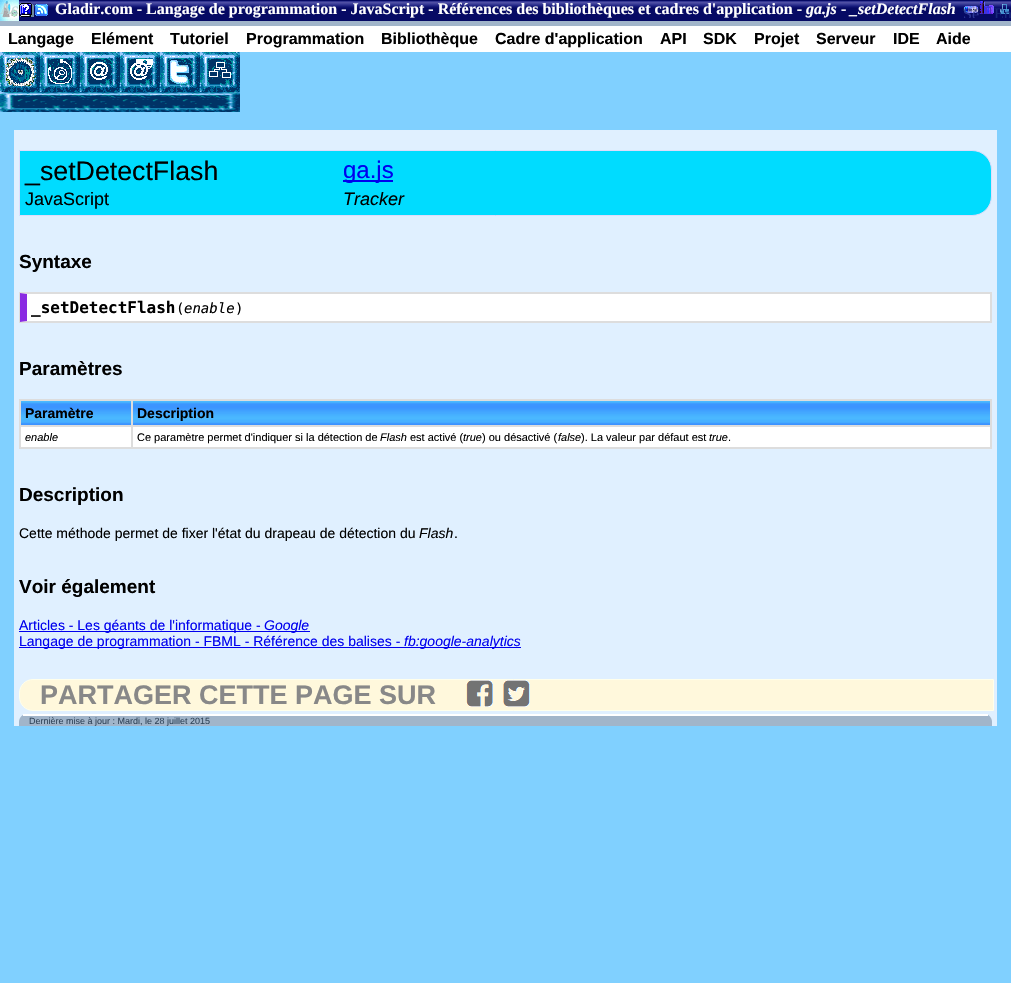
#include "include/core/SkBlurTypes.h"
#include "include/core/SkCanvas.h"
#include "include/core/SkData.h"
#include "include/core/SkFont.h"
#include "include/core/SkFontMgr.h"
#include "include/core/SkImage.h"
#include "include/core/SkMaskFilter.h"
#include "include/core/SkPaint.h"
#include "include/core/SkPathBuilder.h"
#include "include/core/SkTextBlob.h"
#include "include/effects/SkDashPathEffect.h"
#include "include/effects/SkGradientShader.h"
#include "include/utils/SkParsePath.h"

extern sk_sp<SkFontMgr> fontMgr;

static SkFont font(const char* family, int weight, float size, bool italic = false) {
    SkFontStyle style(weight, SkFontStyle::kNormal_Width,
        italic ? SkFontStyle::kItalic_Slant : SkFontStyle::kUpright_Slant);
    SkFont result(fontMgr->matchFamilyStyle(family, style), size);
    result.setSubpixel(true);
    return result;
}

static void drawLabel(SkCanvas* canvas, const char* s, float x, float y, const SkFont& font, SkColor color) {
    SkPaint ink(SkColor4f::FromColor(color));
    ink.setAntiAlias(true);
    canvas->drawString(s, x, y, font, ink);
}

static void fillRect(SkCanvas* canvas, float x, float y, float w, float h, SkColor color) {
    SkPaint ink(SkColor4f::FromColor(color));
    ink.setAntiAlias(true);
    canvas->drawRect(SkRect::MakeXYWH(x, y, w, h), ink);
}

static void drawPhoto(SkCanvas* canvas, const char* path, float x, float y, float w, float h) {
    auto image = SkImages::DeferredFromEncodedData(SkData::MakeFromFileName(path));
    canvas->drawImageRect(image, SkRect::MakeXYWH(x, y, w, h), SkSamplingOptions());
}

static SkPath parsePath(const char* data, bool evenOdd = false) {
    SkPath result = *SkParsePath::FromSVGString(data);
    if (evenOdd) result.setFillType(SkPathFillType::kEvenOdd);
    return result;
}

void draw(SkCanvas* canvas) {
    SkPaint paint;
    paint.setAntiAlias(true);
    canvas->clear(0xFF80D0FF);
    drawPhoto(canvas, "assets/img1.png", 19, 0, 992, 21);
    drawPhoto(canvas, "assets/img2.png", 0, 0, 19, 21);
    SkFont font1 = font("Liberation Serif", 400, 16);
    drawLabel(canvas, "Ac", 0, 14, font1, 0xFFBCD6D8);
    drawPhoto(canvas, "assets/img3.png", 19, 3, 15, 14);
    drawPhoto(canvas, "assets/img4.png", 35, 4, 13, 12);
    SkFont font2 = font("Liberation Serif", 700, 16);
    drawLabel(canvas, "Gladir.com - Langage de programmation - JavaScript - Références des bibliothèques et cadres d'application -", 55, 14, font2, 0xFFFFFFFF);
    SkFont font3 = font("Liberation Serif", 700, 16, true);
    drawLabel(canvas, "ga.js", 806, 14, font3, 0xFFFFFFFF);
    drawLabel(canvas, "-", 841, 14, font2, 0xFFFFFFFF);
    drawLabel(canvas, "_setDetectFlash", 850, 14, font3, 0xFFFFFFFF);
    drawPhoto(canvas, "assets/img5.png", 963, 6, 16, 7);
    canvas->save();
    canvas->clipRect(SkRect::MakeXYWH(963, 5, 16, 13));
    drawLabel(canvas, "Se", 963, 19, font1, 0xFF2B3895);
    canvas->restore();
    drawPhoto(canvas, "assets/img6.png", 980, 1, 14, 13);
    drawLabel(canvas, "In", 979, 14, font1, 0xFF4D2DC1);
    drawPhoto(canvas, "assets/img7.png", 1000, 4, 9, 10);
    canvas->save();
    canvas->clipRect(SkRect::MakeXYWH(994, 5, 17, 13));
    drawLabel(canvas, "En", 994, 19, font1, 0xFF18297C);
    canvas->restore();
    fillRect(canvas, 0, 26, 1011, 26, 0xFFFFFFFF);
    fillRect(canvas, 0, 21, 1011, 5, 0xFFA1B5CA);
    SkFont font4 = font("Liberation Sans", 700, 16);
    drawLabel(canvas, "Langage", 8, 44, font4, 0xFF000000);
    drawLabel(canvas, "Elément", 91, 44, font4, 0xFF000000);
    drawLabel(canvas, "Tutoriel", 170, 44, font4, 0xFF000000);
    drawLabel(canvas, "Programmation", 246, 44, font4, 0xFF000000);
    drawLabel(canvas, "Bibliothèque", 381, 44, font4, 0xFF000000);
    drawLabel(canvas, "Cadre d'application", 495, 44, font4, 0xFF000000);
    drawLabel(canvas, "API", 660, 44, font4, 0xFF000000);
    drawLabel(canvas, "SDK", 703, 44, font4, 0xFF000000);
    drawLabel(canvas, "Projet", 754, 44, font4, 0xFF000000);
    drawLabel(canvas, "Serveur", 816, 44, font4, 0xFF000000);
    drawLabel(canvas, "IDE", 893, 44, font4, 0xFF000000);
    drawLabel(canvas, "Aide", 936, 44, font4, 0xFF000000);
    drawPhoto(canvas, "assets/img8.png", 0, 52, 40, 40);
    drawPhoto(canvas, "assets/img9.png", 40, 52, 40, 40);
    drawPhoto(canvas, "assets/img10.png", 80, 52, 40, 40);
    drawPhoto(canvas, "assets/img11.png", 120, 52, 40, 40);
    drawPhoto(canvas, "assets/img12.png", 160, 52, 40, 40);
    drawPhoto(canvas, "assets/img13.png", 200, 52, 40, 40);
    drawPhoto(canvas, "assets/img14.png", 0, 92, 240, 20);
    fillRect(canvas, 14, 130, 983, 596, 0xFFE0F0FF);
    paint.setColor(0xFF00DCFF);
    canvas->drawPath(parsePath("M19.5 150.5H972C983 150.5 991.5 159 991.5 170V196C991.5 207 983 215.5 972 215.5H19.5Z"), paint);
    paint.setStroke(true);
    paint.setStrokeWidth(1);
    paint.setColor(0xFFDDDDFB);
    canvas->drawPath(parsePath("M19.5 150.5H972C983 150.5 991.5 159 991.5 170V196C991.5 207 983 215.5 972 215.5H19.5Z"), paint);
    SkFont font5 = font("Liberation Sans", 400, 26.75f);
    drawLabel(canvas, "_setDetectFlash", 25, 180, font5, 0xFF000000);
    fillRect(canvas, 343, 180, 50, 2, 0xFF0000EE);
    SkFont font6 = font("Liberation Sans", 400, 24);
    drawLabel(canvas, "ga.js", 343, 178, font6, 0xFF0000EE);
    SkFont font7 = font("Liberation Sans", 400, 18);
    drawLabel(canvas, "JavaScript", 25, 205, font7, 0xFF000000);
    SkFont font8 = font("Liberation Sans", 400, 18, true);
    drawLabel(canvas, "Tracker", 343, 205, font8, 0xFF000000);
    SkFont font9 = font("Liberation Sans", 700, 19);
    drawLabel(canvas, "Syntaxe", 19, 268, font9, 0xFF000000);
    fillRect(canvas, 20, 293, 970, 29, 0xFFFFFFFF);
    paint.setColor(0xFFDDDDDD);
    canvas->drawRect(SkRect::MakeXYWH(19.5f, 292.5f, 972, 30), paint);
    paint.setStroke(false);
    canvas->drawPath(parsePath("M20 293H991L990 294H27Z"), paint);
    fillRect(canvas, 990, 293, 1, 29, 0xFFDDDDDD);
    canvas->drawPath(parsePath("M991 322H20L27 321H990Z"), paint);
    paint.setColor(0xFF8A2BE2);
    canvas->drawPath(parsePath("M20 322V293L27 294V321Z"), paint);
    SkFont font10 = font("DejaVu Sans Mono", 700, 16);
    drawLabel(canvas, "_setDetectFlash", 31, 313, font10, 0xFF000000);
    SkFont font11 = font("DejaVu Sans Mono", 400, 14);
    drawLabel(canvas, "(", 176, 313, font11, 0xFF000000);
    SkFont font12 = font("DejaVu Sans Mono", 400, 14, true);
    drawLabel(canvas, "enable", 184, 313, font12, 0xFF000000);
    drawLabel(canvas, ")", 235, 313, font11, 0xFF000000);
    drawLabel(canvas, "Paramètres", 19, 375, font9, 0xFF000000);
    fillRect(canvas, 21, 427, 969, 20, 0xFFFFFFFF);
    paint.setStroke(true);
    paint.setColor(0xFFDDDDDD);
    canvas->drawRect(SkRect::MakeXYWH(19.5f, 399.5f, 972, 49), paint);
    drawPhoto(canvas, "assets/img15.png", 21, 401, 110, 24);
    canvas->drawRect(SkRect::MakeXYWH(20.5f, 400.5f, 111, 25), paint);
    SkFont font13 = font("Liberation Sans", 700, 14);
    drawLabel(canvas, "Paramètre", 25, 418, font13, 0xFF000000);
    drawPhoto(canvas, "assets/img16.png", 133, 401, 857, 24);
    canvas->drawRect(SkRect::MakeXYWH(132.5f, 400.5f, 858, 25), paint);
    drawLabel(canvas, "Description", 137, 418, font13, 0xFF000000);
    canvas->drawRect(SkRect::MakeXYWH(20.5f, 426.5f, 111, 21), paint);
    SkFont font14 = font("Liberation Sans", 400, 11, true);
    drawLabel(canvas, "enable", 25, 441, font14, 0xFF000000);
    canvas->drawRect(SkRect::MakeXYWH(132.5f, 426.5f, 858, 21), paint);
    SkFont font15 = font("Liberation Sans", 400, 11);
    drawLabel(canvas, "Ce paramètre permet d'indiquer si la détection de", 137, 441, font15, 0xFF000000);
    drawLabel(canvas, "Flash", 380, 441, font14, 0xFF000000);
    drawLabel(canvas, "est activé (", 410, 441, font15, 0xFF000000);
    drawLabel(canvas, "true", 463, 441, font14, 0xFF000000);
    drawLabel(canvas, ") ou désactivé (", 482, 441, font15, 0xFF000000);
    drawLabel(canvas, "false", 558, 441, font14, 0xFF000000);
    drawLabel(canvas, "). La valeur par défaut est", 581, 441, font15, 0xFF000000);
    drawLabel(canvas, "true", 709, 441, font14, 0xFF000000);
    drawLabel(canvas, ".", 728, 441, font15, 0xFF000000);
    drawLabel(canvas, "Description", 19, 501, font9, 0xFF000000);
    SkFont font16 = font("Liberation Sans", 400, 14);
    drawLabel(canvas, "Cette méthode permet de fixer l'état du drapeau de détection du", 19, 538, font16, 0xFF000000);
    SkFont font17 = font("Liberation Sans", 400, 14, true);
    drawLabel(canvas, "Flash", 419, 538, font17, 0xFF000000);
    drawLabel(canvas, ".", 454, 538, font16, 0xFF000000);
    drawLabel(canvas, "Voir également", 19, 593, font9, 0xFF000000);
    fillRect(canvas, 19, 631, 291, 1, 0xFF0000EE);
    drawLabel(canvas, "Articles - Les géants de l'informatique -", 19, 630, font16, 0xFF0000EE);
    drawLabel(canvas, "Google", 264, 630, font17, 0xFF0000EE);
    fillRect(canvas, 19, 647, 502, 1, 0xFF0000EE);
    drawLabel(canvas, "Langage de programmation - FBML - Référence des balises -", 19, 646, font16, 0xFF0000EE);
    drawLabel(canvas, "fb:google-analytics", 404, 646, font17, 0xFF0000EE);
    paint.setStroke(false);
    paint.setColor(0xFFFFF8DC);
    canvas->drawPath(parsePath("M33 679.5H993.5V710.5H33C25.5 710.5 19.5 704.5 19.5 697V693C19.5 685.5 25.5 679.5 33 679.5Z"), paint);
    paint.setStroke(true);
    paint.setColor(0xFFFFFFEC);
    canvas->drawPath(parsePath("M33 679.5H993.5V710.5H33C25.5 710.5 19.5 704.5 19.5 697V693C19.5 685.5 25.5 679.5 33 679.5Z"), paint);
    SkFont font18 = font("Liberation Sans", 700, 27);
    drawLabel(canvas, "PARTAGER CETTE PAGE SUR", 40, 704, font18, 0xFF888888);
    drawPhoto(canvas, "assets/img17.png", 466, 680, 27, 27);
    drawPhoto(canvas, "assets/img18.png", 503, 680, 27, 27);
    paint.setStroke(false);
    paint.setColor(0xFFA1B5CA);
    canvas->drawPath(parsePath("M27 714H984C988.5 714 992 717.5 992 722V726H19V722C19 717.5 22.5 714 27 714Z"), paint);
    fillRect(canvas, 23, 714, 965, 2, 0xFFFFFFFF);
    SkFont font19 = font("Liberation Sans", 400, 9);
    drawLabel(canvas, "Dernière mise à jour : Mardi, le 28 juillet 2015", 29, 724, font19, 0xFF31455A);
}
